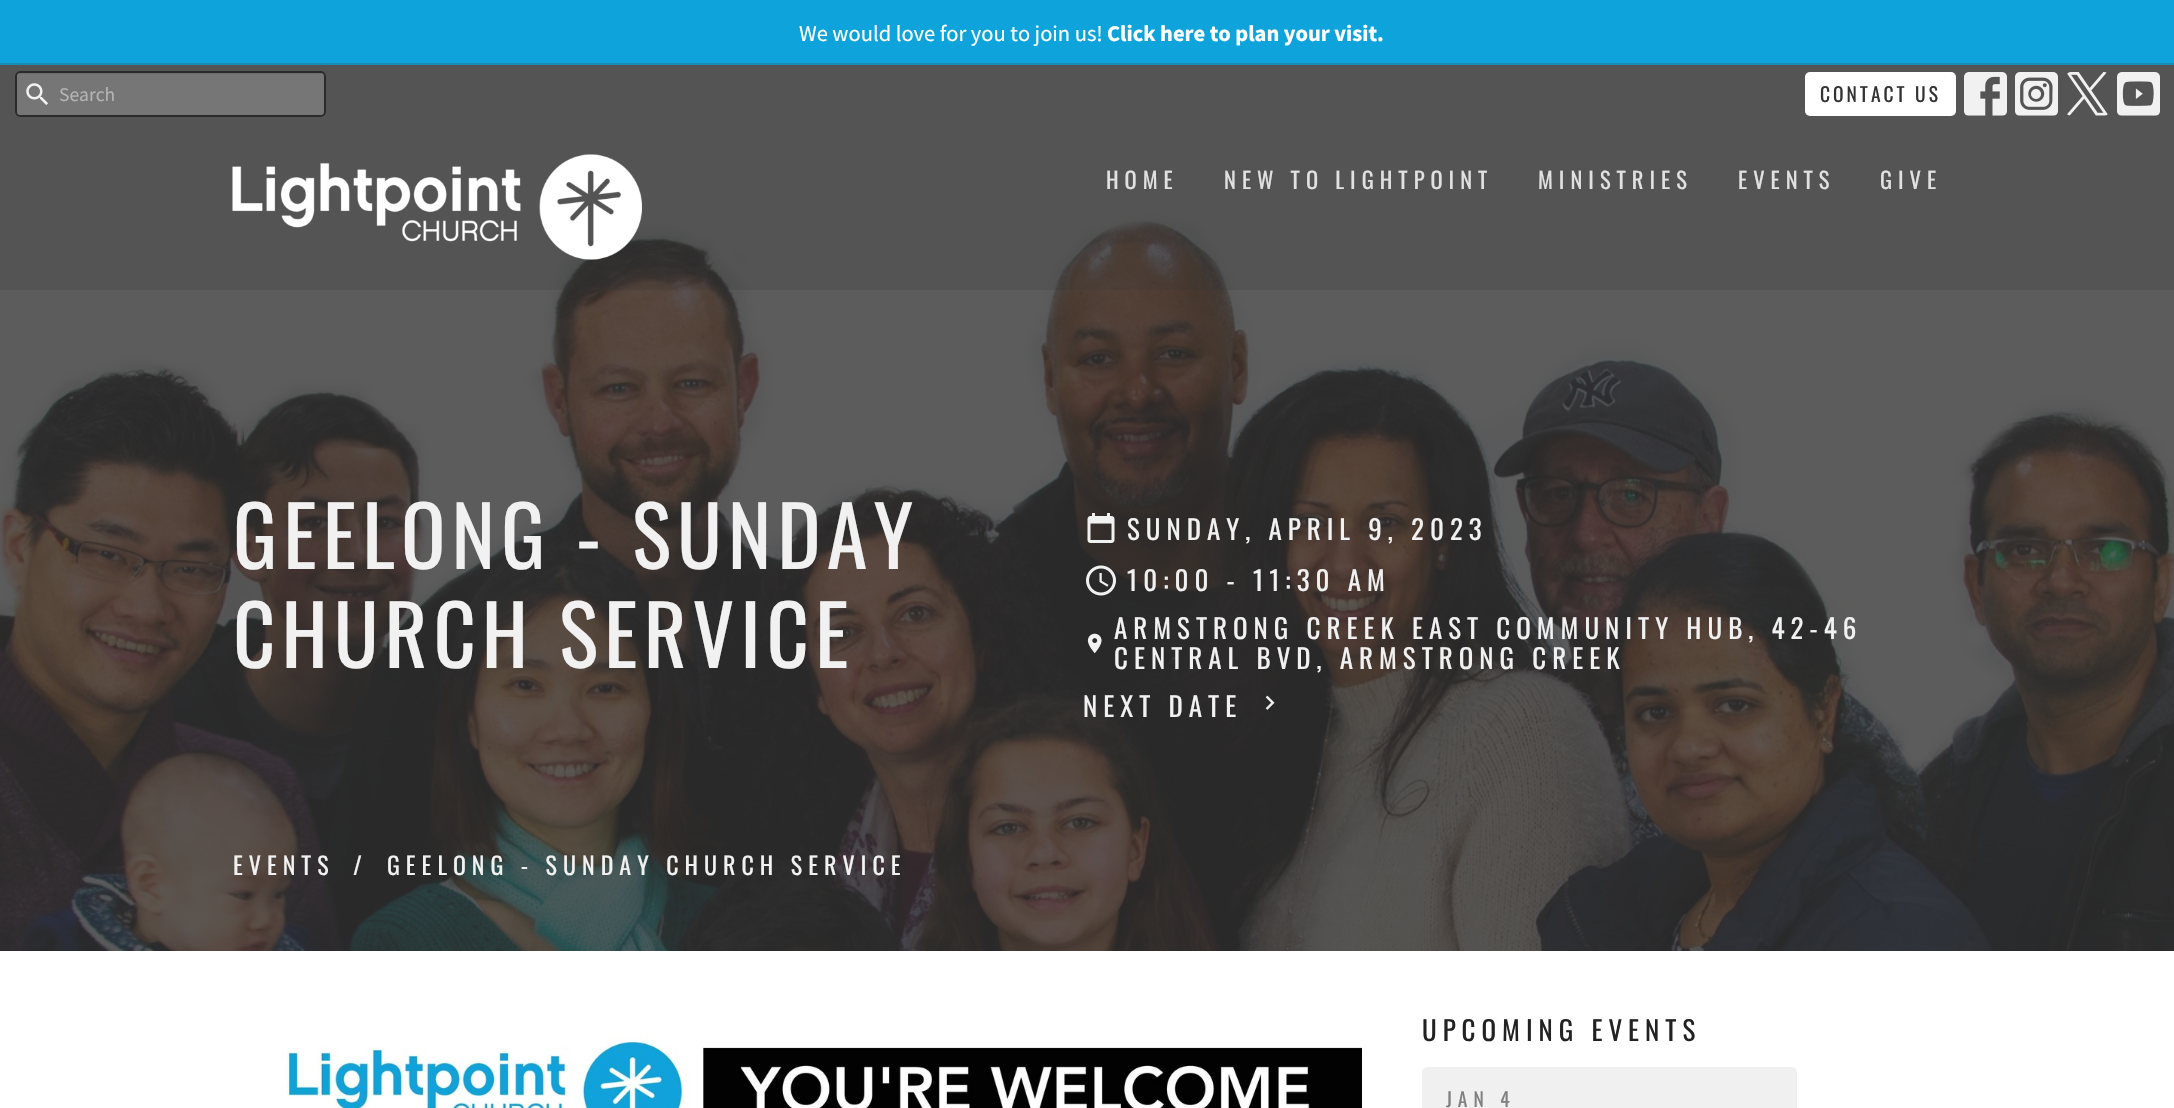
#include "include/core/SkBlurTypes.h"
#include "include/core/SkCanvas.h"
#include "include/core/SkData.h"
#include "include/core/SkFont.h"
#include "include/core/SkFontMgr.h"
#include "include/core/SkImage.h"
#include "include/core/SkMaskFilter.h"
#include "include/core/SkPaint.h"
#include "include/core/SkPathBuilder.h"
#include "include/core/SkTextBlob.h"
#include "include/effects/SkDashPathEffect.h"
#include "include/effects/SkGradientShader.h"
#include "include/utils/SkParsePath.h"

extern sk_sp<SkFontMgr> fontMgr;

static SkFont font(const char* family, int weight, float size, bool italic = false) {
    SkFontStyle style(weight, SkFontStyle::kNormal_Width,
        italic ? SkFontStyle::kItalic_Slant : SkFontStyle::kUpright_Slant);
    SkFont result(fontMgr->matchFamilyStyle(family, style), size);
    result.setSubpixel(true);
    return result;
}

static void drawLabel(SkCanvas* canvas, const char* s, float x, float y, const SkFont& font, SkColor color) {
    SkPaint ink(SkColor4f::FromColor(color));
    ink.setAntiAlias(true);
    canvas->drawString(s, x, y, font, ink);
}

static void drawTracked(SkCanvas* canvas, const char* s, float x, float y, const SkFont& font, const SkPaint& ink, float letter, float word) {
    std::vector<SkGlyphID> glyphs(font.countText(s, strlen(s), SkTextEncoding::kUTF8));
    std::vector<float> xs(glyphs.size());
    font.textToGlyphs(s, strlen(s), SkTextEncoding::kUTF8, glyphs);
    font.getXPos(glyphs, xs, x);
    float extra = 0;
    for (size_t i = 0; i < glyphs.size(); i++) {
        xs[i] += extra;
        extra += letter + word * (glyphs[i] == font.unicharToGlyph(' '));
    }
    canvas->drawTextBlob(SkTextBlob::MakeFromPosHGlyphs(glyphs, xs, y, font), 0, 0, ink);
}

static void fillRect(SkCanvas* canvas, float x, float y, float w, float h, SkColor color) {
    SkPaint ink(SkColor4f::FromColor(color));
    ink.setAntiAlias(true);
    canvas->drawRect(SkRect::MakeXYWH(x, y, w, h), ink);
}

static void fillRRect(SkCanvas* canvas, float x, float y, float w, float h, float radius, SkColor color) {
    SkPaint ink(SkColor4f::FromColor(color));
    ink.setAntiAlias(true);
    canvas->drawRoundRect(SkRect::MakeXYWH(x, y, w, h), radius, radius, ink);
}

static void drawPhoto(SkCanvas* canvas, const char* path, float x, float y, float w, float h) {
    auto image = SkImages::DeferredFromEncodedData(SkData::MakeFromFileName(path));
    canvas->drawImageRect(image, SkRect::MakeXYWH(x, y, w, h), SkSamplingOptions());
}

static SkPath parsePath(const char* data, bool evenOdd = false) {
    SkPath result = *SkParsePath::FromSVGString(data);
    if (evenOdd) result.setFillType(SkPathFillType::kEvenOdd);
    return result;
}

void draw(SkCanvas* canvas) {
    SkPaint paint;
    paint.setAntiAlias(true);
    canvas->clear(0xFFFFFFFF);
    fillRect(canvas, 0, 0, 2174, 65, 0xFF0EA3DB);
    SkFont font1 = font("Source Sans Pro", 400, 22.5f);
    drawLabel(canvas, "We would love for you to join us!", 799, 41, font1, 0xFFFFFFFF);
    SkFont font2 = font("Source Sans Pro", 700, 22.5f);
    drawLabel(canvas, "Click here to plan your visit.", 1107, 41, font2, 0xFFFFFFFF);
    drawPhoto(canvas, "assets/img7.png", 0, 65, 2174, 886);
    fillRect(canvas, 0, 63, 2174, 62, 0x33333333);
    fillRRect(canvas, 15, 71, 311, 46, 5, 0xFF767676);
    paint.setColor(0xFF6D6D6D);
    canvas->drawPath(parsePath("M20 74H321C323 74 324 75 324 76C324 74 323 72 321 72H19L18 73L17 75Z"), paint);
    paint.setStroke(true);
    paint.setStrokeWidth(2);
    paint.setColor(0xFF2B2B2B);
    canvas->drawRoundRect(SkRect::MakeXYWH(16, 72, 309, 44), 4, 4, paint);
    drawPhoto(canvas, "assets/img1.png", 26, 83, 22, 22);
    SkFont font3 = font("Source Sans Pro", 400, 19.5f);
    drawLabel(canvas, "Search", 59, 101, font3, 0xFFB4B4B4);
    fillRRect(canvas, 1805, 72, 151, 44, 5, 0xFFFFFFFF);
    SkFont font4 = font("Oswald", 400, 19.5f);
    paint.setStroke(false);
    paint.setColor(0xFF333333);
    drawTracked(canvas, "CONTACT US", 1820, 102, font4, paint, 3, 0);
    drawPhoto(canvas, "assets/img2.png", 1964, 72, 43, 44);
    drawPhoto(canvas, "assets/img3.png", 2015, 72, 43, 44);
    drawPhoto(canvas, "assets/img4.png", 2067, 72, 41, 44);
    drawPhoto(canvas, "assets/img5.png", 2117, 72, 43, 44);
    fillRect(canvas, 0, 125, 2174, 165, 0x33333333);
    drawPhoto(canvas, "assets/img6.png", 232, 154, 410, 106);
    SkFont font5 = font("Oswald", 400, 22.5f);
    paint.setColor(0xFFE1E1E1);
    drawTracked(canvas, "HOME", 1106, 189, font5, paint, 6, 0);
    drawTracked(canvas, "NEW TO LIGHTPOINT", 1224, 189, font5, paint, 6, 0);
    drawTracked(canvas, "MINISTRIES", 1538, 189, font5, paint, 6, 0);
    drawTracked(canvas, "EVENTS", 1738, 189, font5, paint, 6, 0);
    drawTracked(canvas, "GIVE", 1880, 189, font5, paint, 6, 0);
    SkFont font6 = font("Oswald", 400, 82.5f);
    paint.setColor(0xFFF1F1F1);
    drawTracked(canvas, "GEELONG - SUNDAY", 233, 569, font6, paint, 6, 0);
    drawTracked(canvas, "CHURCH SERVICE", 233, 668, font6, paint, 6, 0);
    drawPhoto(canvas, "assets/img8.png", 1087, 513, 28, 30);
    SkFont font7 = font("Oswald", 400, 27);
    drawTracked(canvas, "SUNDAY, APRIL 9, 2023", 1127, 540, font7, paint, 6, 0);
    drawPhoto(canvas, "assets/img9.png", 1086, 565, 30, 31);
    drawTracked(canvas, "10:00 - 11:30 AM", 1127, 591, font7, paint, 6, 0);
    drawPhoto(canvas, "assets/img10.png", 1087, 633, 15, 21);
    drawTracked(canvas, "ARMSTRONG CREEK EAST COMMUNITY HUB, 42-46", 1114, 639, font7, paint, 6, 0);
    drawTracked(canvas, "CENTRAL BVD, ARMSTRONG CREEK", 1114, 669, font7, paint, 6, 0);
    drawTracked(canvas, "NEXT DATE", 1083, 717, font7, paint, 6, 0);
    drawPhoto(canvas, "assets/img11.png", 1265, 695, 10, 15);
    SkFont font8 = font("Oswald", 400, 24);
    drawTracked(canvas, "EVENTS", 233, 875, font8, paint, 6, 0);
    drawTracked(canvas, "/", 353, 875, font8, paint, 6, 0);
    drawTracked(canvas, "GEELONG - SUNDAY CHURCH SERVICE", 387, 875, font8, paint, 6, 0);
    drawPhoto(canvas, "assets/img12.png", 281, 1035, 1081, 73);
    paint.setColor(0xFF222222);
    drawTracked(canvas, "UPCOMING EVENTS", 1422, 1041, font7, paint, 6, 0);
    paint.setColor(0xFFF0F0F0);
    canvas->drawPath(parsePath("M1428 1067H1791C1794.5 1067 1797 1069.5 1797 1073V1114H1422V1073C1422 1069.5 1424.5 1067 1428 1067Z"), paint);
    paint.setColor(0xFF808080);
    drawTracked(canvas, "JAN 4", 1446, 1107, font4, paint, 6, 0);
}
